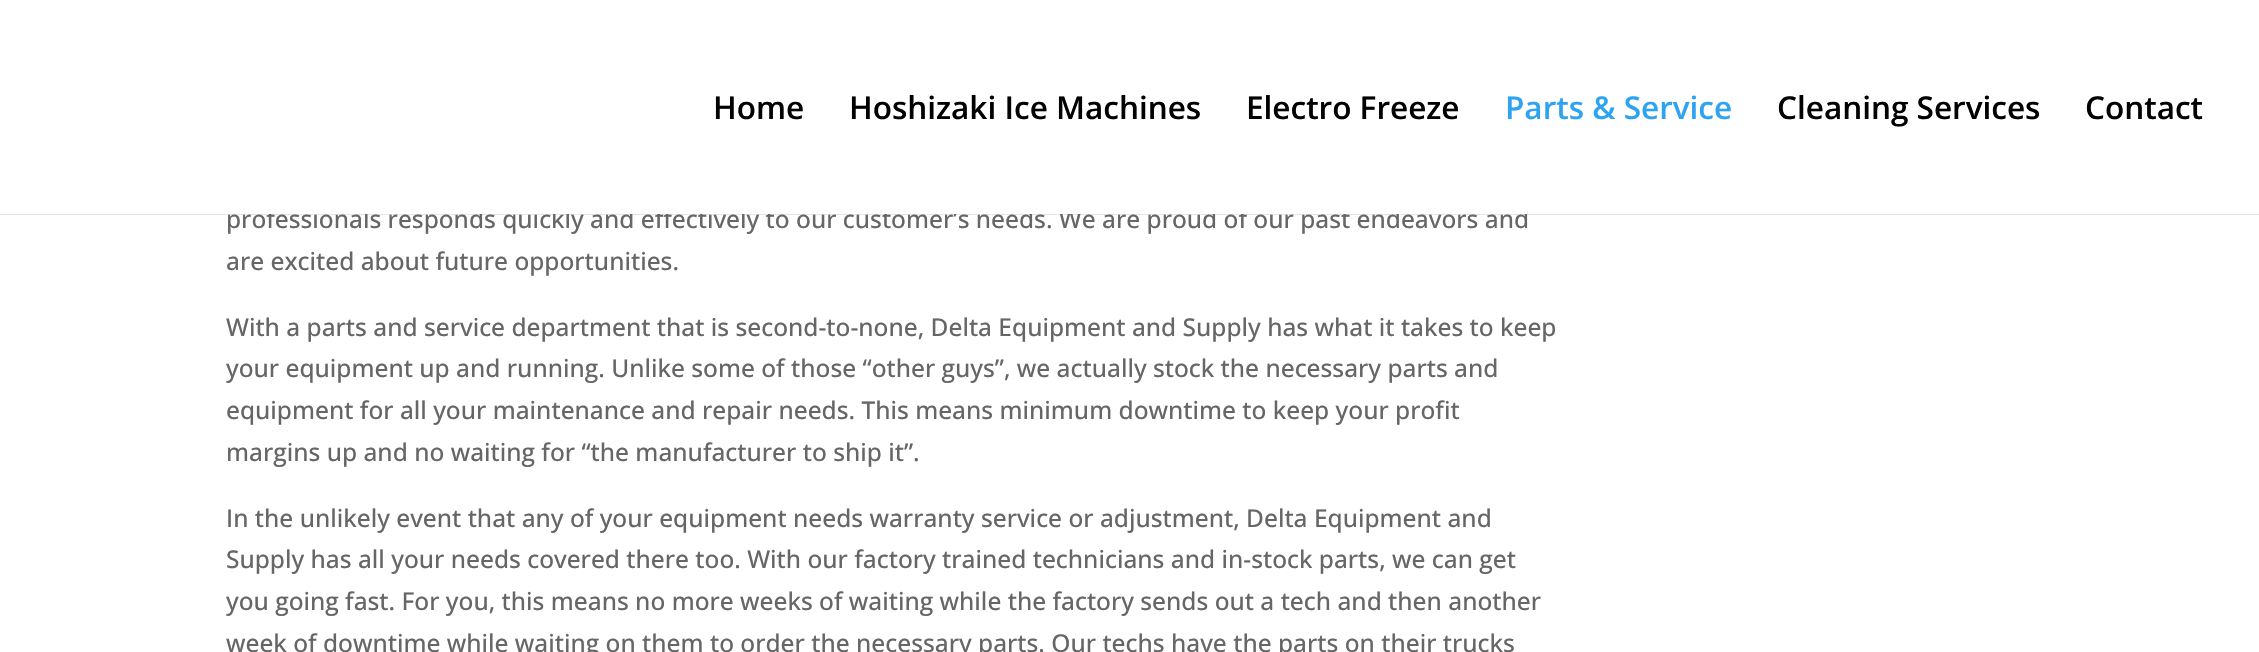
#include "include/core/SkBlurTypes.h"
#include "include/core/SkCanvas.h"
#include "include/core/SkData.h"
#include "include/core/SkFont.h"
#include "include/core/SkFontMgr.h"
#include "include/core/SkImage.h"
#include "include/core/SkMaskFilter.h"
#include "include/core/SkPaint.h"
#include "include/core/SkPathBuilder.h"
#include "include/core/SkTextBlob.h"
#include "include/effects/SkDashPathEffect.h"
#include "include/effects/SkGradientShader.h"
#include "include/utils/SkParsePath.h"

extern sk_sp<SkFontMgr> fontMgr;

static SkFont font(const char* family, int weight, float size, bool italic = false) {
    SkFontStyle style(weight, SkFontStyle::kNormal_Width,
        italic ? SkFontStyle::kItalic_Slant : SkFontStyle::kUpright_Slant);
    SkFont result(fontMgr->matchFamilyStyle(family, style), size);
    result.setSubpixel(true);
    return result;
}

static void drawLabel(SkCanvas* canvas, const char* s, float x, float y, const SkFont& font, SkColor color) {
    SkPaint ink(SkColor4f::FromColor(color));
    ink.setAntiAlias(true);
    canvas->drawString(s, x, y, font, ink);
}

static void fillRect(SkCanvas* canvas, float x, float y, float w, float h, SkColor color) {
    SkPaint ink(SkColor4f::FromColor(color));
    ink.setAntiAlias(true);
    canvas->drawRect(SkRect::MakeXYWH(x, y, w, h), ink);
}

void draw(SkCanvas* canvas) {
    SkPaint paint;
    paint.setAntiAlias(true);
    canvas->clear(0xFFFFFFFF);
    fillRect(canvas, 0, 214, 2259, 1, 0x1A000000);
    SkFont font1 = font("Open Sans", 500, 24.5f);
    drawLabel(canvas, "professionals responds quickly and effectively to our customer’s needs. We are proud of our past endeavors and", 226, 228, font1, 0xFF666666);
    fillRect(canvas, 268, 209, 1259, 5, 0xFFFFFFFF);
    SkFont font2 = font("Open Sans", 600, 31.5f);
    drawLabel(canvas, "Home", 713, 119, font2, 0xFF000000);
    drawLabel(canvas, "Hoshizaki Ice Machines", 849, 119, font2, 0xFF000000);
    drawLabel(canvas, "Electro Freeze", 1246, 119, font2, 0xFF000000);
    drawLabel(canvas, "Parts & Service", 1505, 119, font2, 0xFF2EA3F2);
    drawLabel(canvas, "Cleaning Services", 1777, 119, font2, 0xFF000000);
    drawLabel(canvas, "Contact", 2085, 119, font2, 0xFF000000);
    drawLabel(canvas, "are excited about future opportunities.", 226, 270, font1, 0xFF666666);
    drawLabel(canvas, "With a parts and service department that is second-to-none, Delta Equipment and Supply has what it takes to keep", 226, 336, font1, 0xFF666666);
    drawLabel(canvas, "your equipment up and running. Unlike some of those “other guys”, we actually stock the necessary parts and", 226, 377, font1, 0xFF666666);
    drawLabel(canvas, "equipment for all your maintenance and repair needs. This means minimum downtime to keep your profit", 226, 419, font1, 0xFF666666);
    drawLabel(canvas, "margins up and no waiting for “the manufacturer to ship it”.", 226, 461, font1, 0xFF666666);
    drawLabel(canvas, "In the unlikely event that any of your equipment needs warranty service or adjustment, Delta Equipment and", 226, 527, font1, 0xFF666666);
    drawLabel(canvas, "Supply has all your needs covered there too. With our factory trained technicians and in-stock parts, we can get", 226, 568, font1, 0xFF666666);
    drawLabel(canvas, "you going fast. For you, this means no more weeks of waiting while the factory sends out a tech and then another", 226, 610, font1, 0xFF666666);
    drawLabel(canvas, "week of downtime while waiting on them to order the necessary parts. Our techs have the parts on their trucks", 226, 652, font1, 0xFF666666);
}
